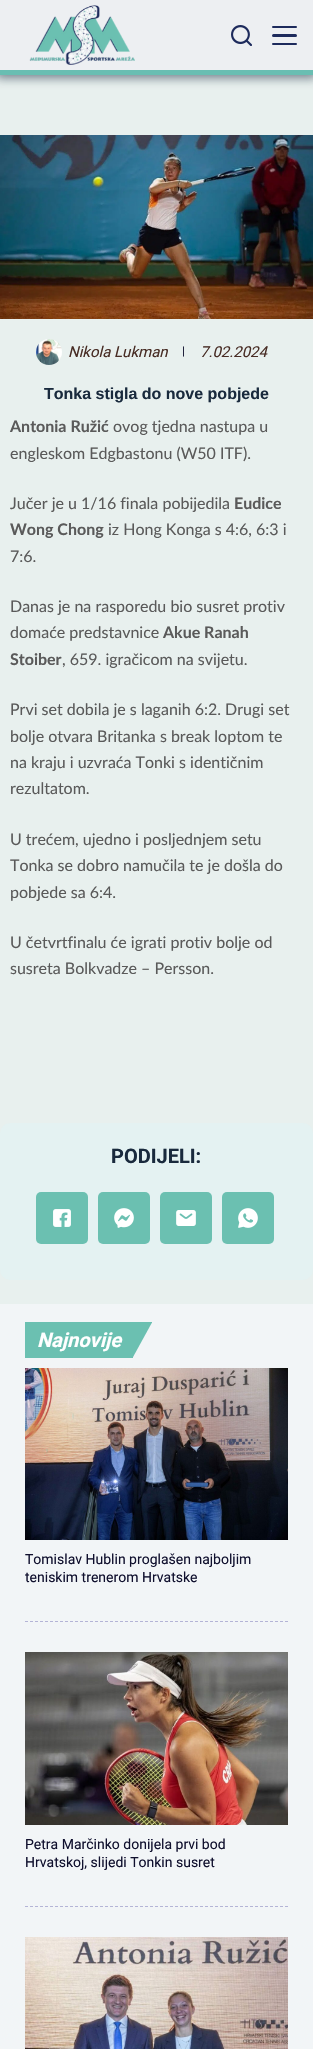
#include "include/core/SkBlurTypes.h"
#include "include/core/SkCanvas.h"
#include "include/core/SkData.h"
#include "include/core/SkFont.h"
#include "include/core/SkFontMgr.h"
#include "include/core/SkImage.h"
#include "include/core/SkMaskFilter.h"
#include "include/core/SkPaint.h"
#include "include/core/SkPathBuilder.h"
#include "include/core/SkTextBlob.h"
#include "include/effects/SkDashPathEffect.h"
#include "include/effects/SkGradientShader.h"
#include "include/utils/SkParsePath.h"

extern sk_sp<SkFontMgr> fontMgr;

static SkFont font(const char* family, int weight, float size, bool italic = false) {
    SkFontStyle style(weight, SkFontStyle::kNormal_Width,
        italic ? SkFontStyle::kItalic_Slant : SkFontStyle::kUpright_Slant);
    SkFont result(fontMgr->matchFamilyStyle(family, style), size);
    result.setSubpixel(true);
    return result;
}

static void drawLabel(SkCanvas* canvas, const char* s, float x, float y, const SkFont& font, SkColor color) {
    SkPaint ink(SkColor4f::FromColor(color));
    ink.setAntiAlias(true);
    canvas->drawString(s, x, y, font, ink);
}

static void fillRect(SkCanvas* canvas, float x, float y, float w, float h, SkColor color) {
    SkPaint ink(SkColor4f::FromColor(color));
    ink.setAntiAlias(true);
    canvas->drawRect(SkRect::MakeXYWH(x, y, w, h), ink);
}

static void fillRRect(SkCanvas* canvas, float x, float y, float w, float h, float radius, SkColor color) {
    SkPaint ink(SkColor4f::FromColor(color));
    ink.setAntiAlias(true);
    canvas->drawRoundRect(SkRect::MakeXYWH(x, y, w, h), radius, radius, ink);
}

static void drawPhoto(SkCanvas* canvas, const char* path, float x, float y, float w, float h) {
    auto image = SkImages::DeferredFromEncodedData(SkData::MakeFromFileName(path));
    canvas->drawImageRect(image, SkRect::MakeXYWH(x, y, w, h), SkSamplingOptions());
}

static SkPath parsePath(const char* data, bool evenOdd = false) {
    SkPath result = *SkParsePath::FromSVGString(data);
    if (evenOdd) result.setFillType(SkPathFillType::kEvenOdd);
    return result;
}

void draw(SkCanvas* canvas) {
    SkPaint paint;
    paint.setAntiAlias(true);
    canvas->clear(0xFFE8F0EE);
    paint.setColor(0xB8415262);
    paint.setMaskFilter(SkMaskFilter::MakeBlur(kNormal_SkBlurStyle, 5));
    canvas->drawRect(SkRect::MakeXYWH(-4, -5, 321, 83), paint);
    paint.setMaskFilter(nullptr);
    fillRect(canvas, 0, 0, 313, 70, 0xFFEDEFF2);
    fillRect(canvas, 0, 70, 313, 5, 0xFF69BEB2);
    drawPhoto(canvas, "assets/img1.png", 29, 5, 106, 60);
    drawPhoto(canvas, "assets/img2.png", 231, 25, 21, 21);
    fillRRect(canvas, 272, 26, 25, 2, 1, 0xFF1D2A5C);
    fillRRect(canvas, 272, 34, 25, 3, 1.5f, 0xFF1D2A5C);
    fillRRect(canvas, 272, 43, 25, 2, 1, 0xFF1D2A5C);
    drawPhoto(canvas, "assets/img3.png", 0, 135, 313, 184);
    drawPhoto(canvas, "assets/img4.png", 36, 339, 26, 26);
    SkFont font1 = font("Roboto", 400, 15, true);
    drawLabel(canvas, "Nikola Lukman", 68, 357, font1, 0xFF482D25);
    SkFont font2 = font("Roboto", 400, 12);
    drawLabel(canvas, "|", 182, 355, font2, 0xFF10102E);
    drawLabel(canvas, "7.02.2024", 200, 357, font1, 0xFF482D25);
    SkFont font3 = font("Liberation Sans", 700, 16);
    drawLabel(canvas, "Tonka stigla do nove pobjede", 44, 399, font3, 0xFF192A3D);
    SkFont font4 = font("Lato", 700, 16);
    drawLabel(canvas, "Antonia Ružić", 10, 432, font4, 0xFF5A5A5A);
    SkFont font5 = font("Lato", 400, 16);
    drawLabel(canvas, "ovog tjedna nastupa u", 113, 432, font5, 0xFF5A5A5A);
    drawLabel(canvas, "engleskom Edgbastonu (W50 ITF).", 10, 459, font5, 0xFF5A5A5A);
    drawLabel(canvas, "Jučer je u 1/16 finala pobijedila", 10, 509, font5, 0xFF5A5A5A);
    drawLabel(canvas, "Eudice", 234, 509, font4, 0xFF5A5A5A);
    drawLabel(canvas, "Wong Chong", 10, 535, font4, 0xFF5A5A5A);
    drawLabel(canvas, "iz Hong Konga s 4:6, 6:3 i", 108, 535, font5, 0xFF5A5A5A);
    drawLabel(canvas, "7:6.", 10, 562, font5, 0xFF5A5A5A);
    drawLabel(canvas, "Danas je na rasporedu bio susret protiv", 10, 612, font5, 0xFF5A5A5A);
    drawLabel(canvas, "domaće predstavnice", 10, 638, font5, 0xFF5A5A5A);
    drawLabel(canvas, "Akue Ranah", 163, 638, font4, 0xFF5A5A5A);
    drawLabel(canvas, "Stoiber", 10, 665, font4, 0xFF5A5A5A);
    drawLabel(canvas, ", 659. igračicom na svijetu.", 62, 665, font5, 0xFF5A5A5A);
    drawLabel(canvas, "Prvi set dobila je s laganih 6:2. Drugi set", 10, 715, font5, 0xFF5A5A5A);
    drawLabel(canvas, "bolje otvara Britanka s break loptom te", 10, 742, font5, 0xFF5A5A5A);
    drawLabel(canvas, "na kraju i uzvraća Tonki s identičnim", 10, 768, font5, 0xFF5A5A5A);
    drawLabel(canvas, "rezultatom.", 10, 794, font5, 0xFF5A5A5A);
    drawLabel(canvas, "U trećem, ujedno i posljednjem setu", 10, 845, font5, 0xFF5A5A5A);
    drawLabel(canvas, "Tonka se dobro namučila te je došla do", 10, 871, font5, 0xFF5A5A5A);
    drawLabel(canvas, "pobjede sa 6:4.", 10, 898, font5, 0xFF5A5A5A);
    drawLabel(canvas, "U četvrtfinalu će igrati protiv bolje od", 10, 948, font5, 0xFF5A5A5A);
    drawLabel(canvas, "susreta Bolkvadze – Persson.", 10, 974, font5, 0xFF5A5A5A);
    fillRRect(canvas, 0, 1123, 313, 157, 10, 0xFFE4F2F2);
    SkFont font6 = font("Roboto", 700, 20);
    drawLabel(canvas, "PODIJELI:", 111, 1163, font6, 0xFF192A3D);
    fillRRect(canvas, 36, 1192, 52, 52, 5, 0xFF6BC0B1);
    drawPhoto(canvas, "assets/img5.png", 53, 1209, 18, 18);
    fillRRect(canvas, 98, 1192, 52, 52, 5, 0xFF6BC0B1);
    drawPhoto(canvas, "assets/img6.png", 114, 1208, 20, 20);
    fillRRect(canvas, 160, 1192, 52, 52, 5, 0xFF6BC0B1);
    drawPhoto(canvas, "assets/img7.png", 176, 1210, 20, 16);
    fillRRect(canvas, 222, 1192, 52, 52, 5, 0xFF6BC0B1);
    drawPhoto(canvas, "assets/img8.png", 238, 1208, 20, 20);
    fillRect(canvas, 0, 1304, 313, 745, 0xFFF2F5F7);
    fillRect(canvas, 25, 1322, 108, 36, 0xFF6BC0B1);
    SkFont font7 = font("Roboto", 700, 20, true);
    drawLabel(canvas, "Najnovije", 37, 1347, font7, 0xFFFFFFFF);
    paint.setColor(0xFF6BC0B1);
    canvas->drawPath(parsePath("M152 1322.5V1322H132.5V1358Z"), paint);
    paint.setStroke(true);
    paint.setStrokeWidth(1);
    paint.setColor(0xFFB4B4D6);
    paint.setPathEffect(SkDashPathEffect::Make({{3, 2}}, 0));
    canvas->drawPath(parsePath("M25 1621.5H288"), paint);
    paint.setPathEffect(nullptr);
    drawPhoto(canvas, "assets/img9.png", 25, 1368, 263, 172);
    SkFont font8 = font("Roboto", 400, 14);
    drawLabel(canvas, "Tomislav Hublin proglašen najboljim", 25, 1564, font8, 0xFF10102E);
    drawLabel(canvas, "teniskim trenerom Hrvatske", 25, 1582, font8, 0xFF10102E);
    paint.setPathEffect(SkDashPathEffect::Make({{3, 2}}, 0));
    canvas->drawPath(parsePath("M25 1906.5H288"), paint);
    paint.setPathEffect(nullptr);
    drawPhoto(canvas, "assets/img10.png", 25, 1652, 263, 173);
    drawLabel(canvas, "Petra Marčinko donijela prvi bod", 25, 1849, font8, 0xFF10102E);
    drawLabel(canvas, "Hrvatskoj, slijedi Tonkin susret", 25, 1867, font8, 0xFF10102E);
    drawPhoto(canvas, "assets/img11.png", 25, 1937, 263, 112);
}
